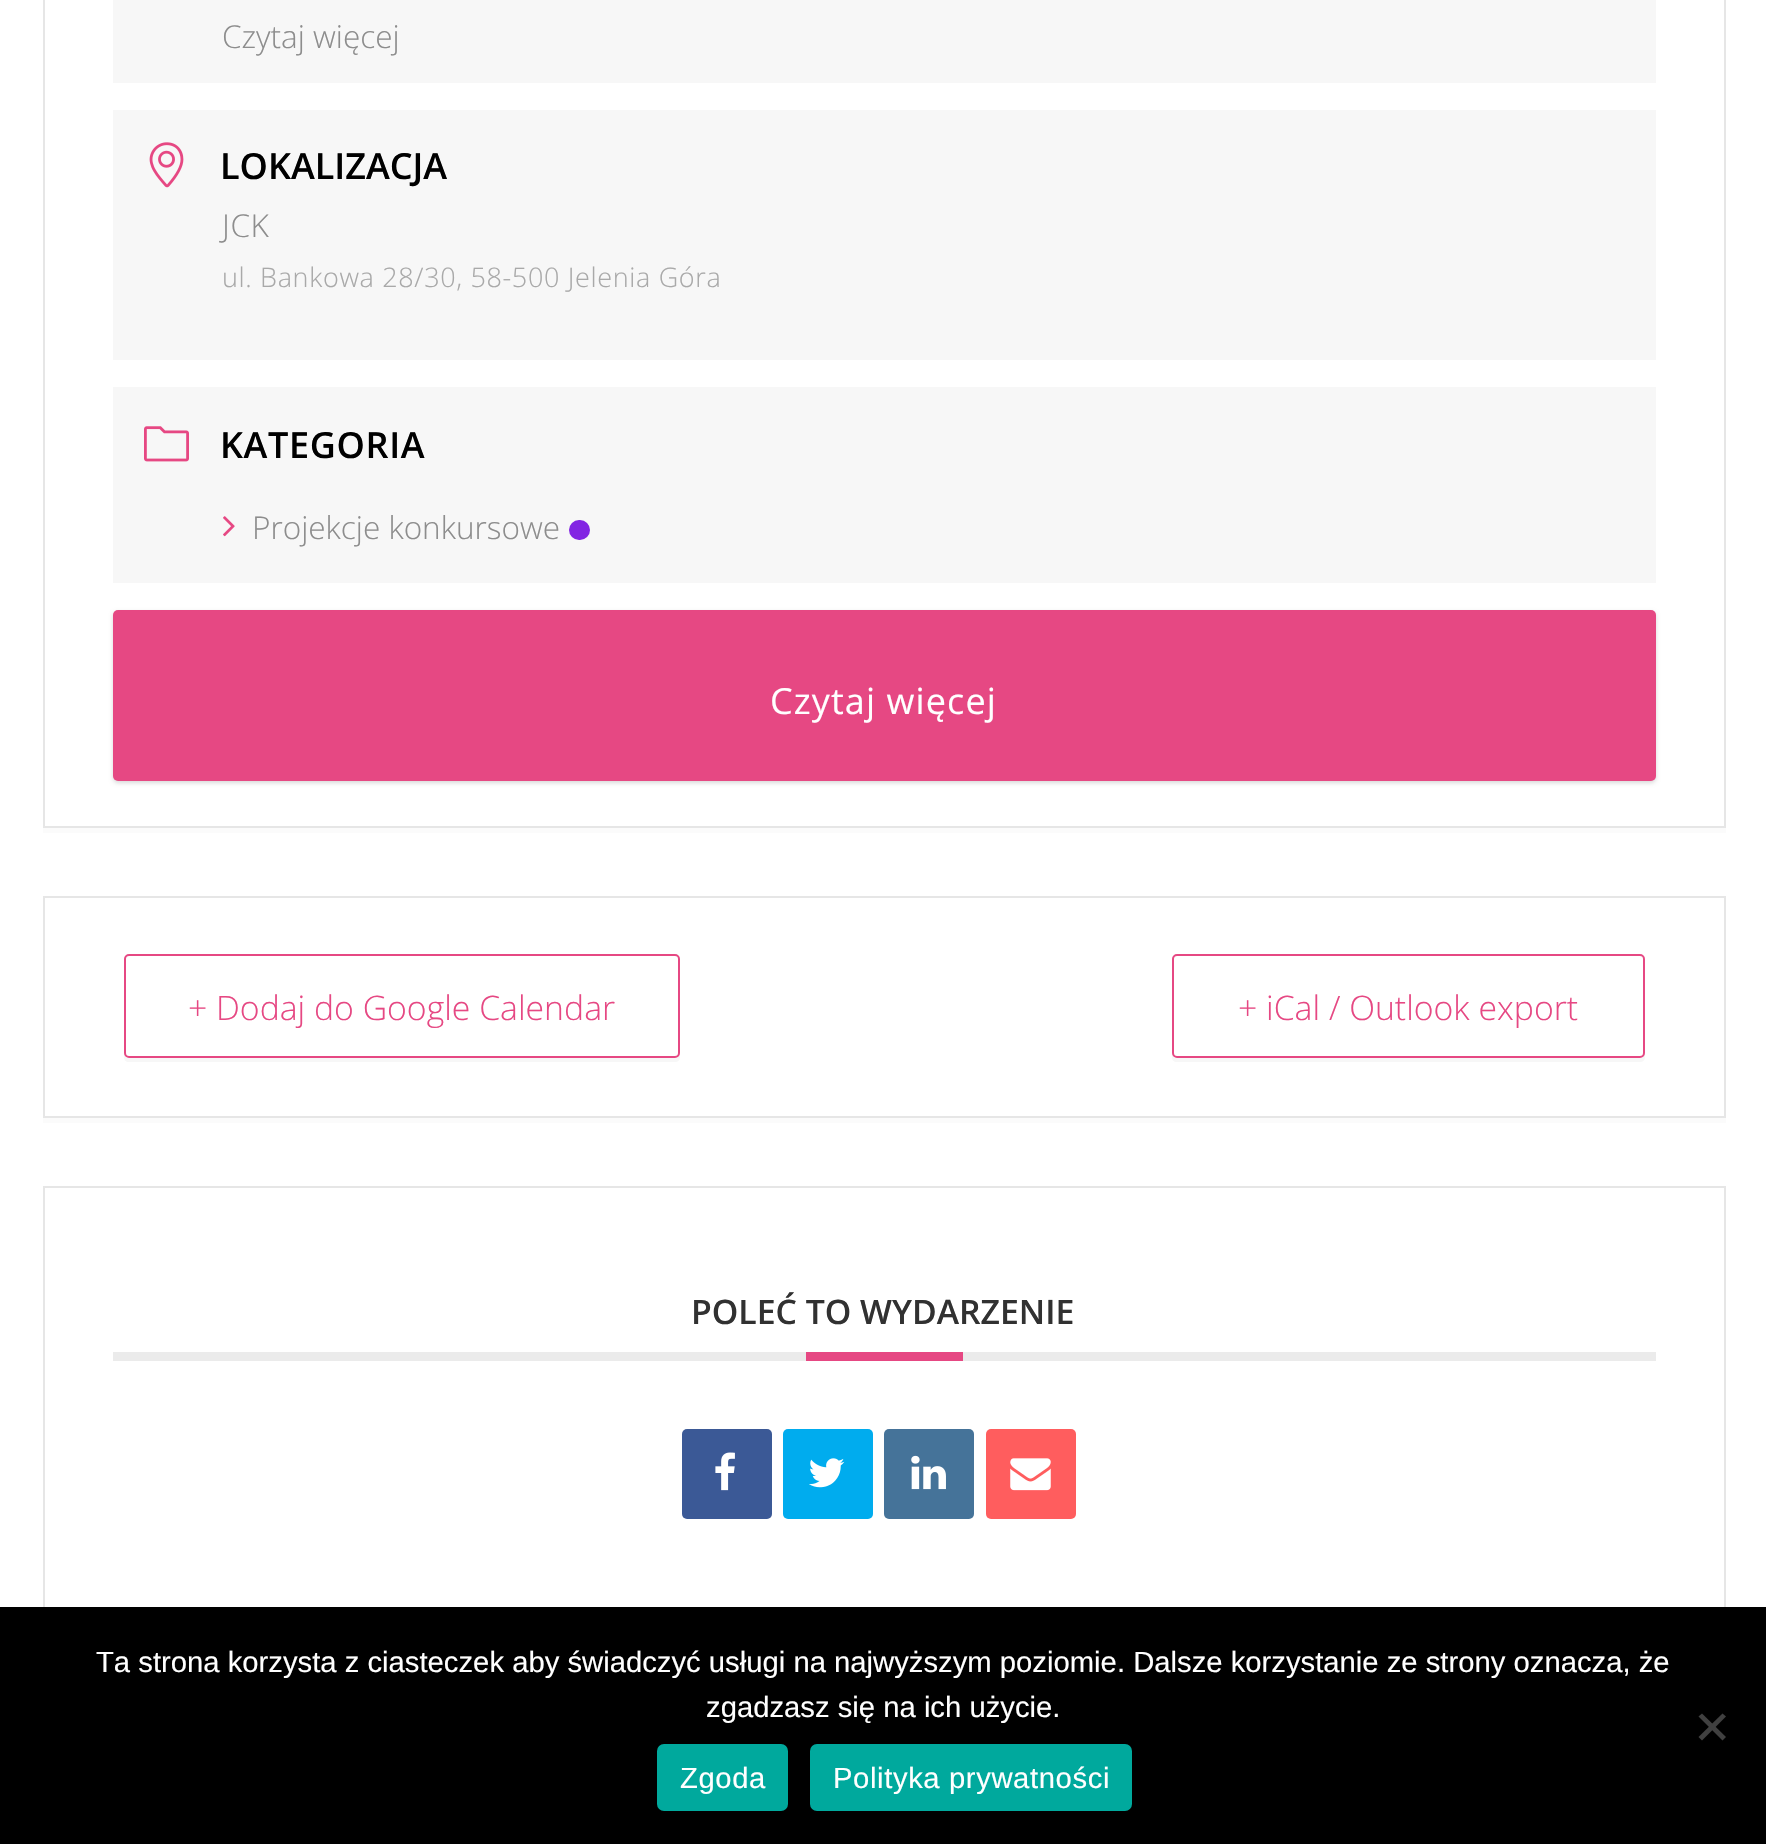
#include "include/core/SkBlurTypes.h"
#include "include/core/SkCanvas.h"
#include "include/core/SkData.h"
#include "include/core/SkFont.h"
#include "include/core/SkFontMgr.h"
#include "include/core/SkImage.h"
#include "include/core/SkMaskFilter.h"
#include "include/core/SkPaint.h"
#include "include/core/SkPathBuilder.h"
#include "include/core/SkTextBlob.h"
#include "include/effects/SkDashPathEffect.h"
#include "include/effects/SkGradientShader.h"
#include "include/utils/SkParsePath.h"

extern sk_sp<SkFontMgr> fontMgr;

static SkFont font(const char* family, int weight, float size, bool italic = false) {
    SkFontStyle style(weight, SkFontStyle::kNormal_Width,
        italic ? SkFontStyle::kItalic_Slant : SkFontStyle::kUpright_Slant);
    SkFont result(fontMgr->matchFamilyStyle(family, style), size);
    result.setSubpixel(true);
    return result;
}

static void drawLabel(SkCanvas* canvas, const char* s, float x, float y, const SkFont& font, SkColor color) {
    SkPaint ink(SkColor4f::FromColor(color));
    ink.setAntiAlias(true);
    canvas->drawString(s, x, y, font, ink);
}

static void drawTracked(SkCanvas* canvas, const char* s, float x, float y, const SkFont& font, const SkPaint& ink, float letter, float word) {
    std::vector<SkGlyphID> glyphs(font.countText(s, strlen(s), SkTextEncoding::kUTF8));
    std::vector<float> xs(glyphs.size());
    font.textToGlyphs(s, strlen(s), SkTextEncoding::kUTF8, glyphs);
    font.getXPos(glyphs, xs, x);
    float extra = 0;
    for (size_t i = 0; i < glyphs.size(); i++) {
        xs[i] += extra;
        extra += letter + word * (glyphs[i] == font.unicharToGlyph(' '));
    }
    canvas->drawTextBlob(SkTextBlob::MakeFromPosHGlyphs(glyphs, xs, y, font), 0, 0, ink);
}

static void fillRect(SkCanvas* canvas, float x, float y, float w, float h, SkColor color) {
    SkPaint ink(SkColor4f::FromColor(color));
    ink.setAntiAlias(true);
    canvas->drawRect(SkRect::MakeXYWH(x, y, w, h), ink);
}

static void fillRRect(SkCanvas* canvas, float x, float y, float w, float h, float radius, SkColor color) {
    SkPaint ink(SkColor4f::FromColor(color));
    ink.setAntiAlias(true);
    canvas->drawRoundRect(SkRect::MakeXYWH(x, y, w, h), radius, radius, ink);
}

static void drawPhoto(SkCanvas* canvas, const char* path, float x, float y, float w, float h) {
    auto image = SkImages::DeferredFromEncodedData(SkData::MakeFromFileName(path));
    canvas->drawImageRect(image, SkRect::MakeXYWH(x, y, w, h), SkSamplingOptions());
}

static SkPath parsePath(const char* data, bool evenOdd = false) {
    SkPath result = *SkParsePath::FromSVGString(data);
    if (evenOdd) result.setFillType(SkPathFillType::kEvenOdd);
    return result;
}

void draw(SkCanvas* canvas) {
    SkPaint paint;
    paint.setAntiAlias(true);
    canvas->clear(0xFFFFFFFF);
    paint.setColor(0xFFFBFBFB);
    canvas->drawPath(parsePath("M43 828V833H1726V-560V828Z"), paint);
    paint.setStroke(true);
    paint.setStrokeWidth(2);
    paint.setColor(0xFFE6E6E6);
    canvas->drawRect(SkRect::MakeXYWH(44, -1, 1681, 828), paint);
    fillRect(canvas, 113, 0, 1543, 83, 0xFFF7F7F7);
    SkFont font1 = font("Open Sans", 300, 31.5f);
    drawLabel(canvas, "Czytaj więcej", 222, 48, font1, 0xFF8D8D8D);
    fillRect(canvas, 113, 110, 1543, 250, 0xFFF7F7F7);
    drawPhoto(canvas, "assets/img1.png", 149, 142, 35, 46);
    SkFont font2 = font("Open Sans", 600, 36);
    drawLabel(canvas, "LOKALIZACJA", 220, 179, font2, 0xFF000000);
    paint.setStroke(false);
    paint.setColor(0xFF8D8D8D);
    drawTracked(canvas, "JCK", 222, 237, font1, paint, 0.65f, 0);
    SkFont font3 = font("Open Sans", 300, 27);
    paint.setColor(0xFFA9A9A9);
    drawTracked(canvas, "ul. Bankowa 28/30, 58-500 Jelenia Góra", 222, 287, font3, paint, 0.65f, 0);
    fillRect(canvas, 113, 387, 1543, 196, 0xFFF7F7F7);
    drawPhoto(canvas, "assets/img2.png", 144, 426, 45, 36);
    paint.setColor(0xFF000000);
    drawTracked(canvas, "KATEGORIA", 220, 458, font2, paint, 0.65f, 0);
    drawPhoto(canvas, "assets/img3.png", 223, 516, 12, 21);
    drawLabel(canvas, "Projekcje konkursowe", 252, 539, font1, 0xFF8D8D8D);
    fillRRect(canvas, 569, 520, 21, 20, 10, 0xFF8224E3);
    paint.setColor(0x26000000);
    paint.setMaskFilter(SkMaskFilter::MakeBlur(kNormal_SkBlurStyle, 2));
    canvas->drawRoundRect(SkRect::MakeXYWH(113, 612, 1543, 171), 5, 5, paint);
    paint.setMaskFilter(nullptr);
    fillRRect(canvas, 113, 610, 1543, 171, 5, 0xFFE64883);
    SkFont font4 = font("Open Sans", 400, 36);
    paint.setColor(0xFFFFFFFF);
    drawTracked(canvas, "Czytaj więcej", 770, 714, font4, paint, 1.1f, 0);
    paint.setColor(0xFFFBFBFB);
    canvas->drawPath(parsePath("M43 1118V1123H1726V900V1118Z"), paint);
    paint.setStroke(true);
    paint.setColor(0xFFE6E6E6);
    canvas->drawRect(SkRect::MakeXYWH(44, 897, 1681, 220), paint);
    paint.setStroke(false);
    paint.setColor(0xFFF7F7F7);
    canvas->drawPath(parsePath("M124 1054V1057C124 1060 126 1062 129 1062H675C678 1062 680 1060 680 1057V964V962V1053C680 1055 677 1058 675 1058H128C126 1058 125 1056 124 1054Z"), paint);
    paint.setColor(0xFFFFFFFF);
    canvas->drawRoundRect(SkRect::MakeXYWH(125, 955, 554, 102), 4, 4, paint);
    paint.setStroke(true);
    paint.setColor(0xFFE64883);
    canvas->drawRoundRect(SkRect::MakeXYWH(125, 955, 554, 102), 4, 4, paint);
    SkFont font5 = font("Open Sans", 300, 33.75f);
    drawLabel(canvas, "+ Dodaj do Google Calendar", 188, 1020, font5, 0xFFE64883);
    paint.setStroke(false);
    paint.setColor(0xFFF7F7F7);
    canvas->drawPath(parsePath("M1172 962V1057C1172 1060 1174 1062 1177 1062H1640C1643 1062 1645 1060 1645 1057V962V1053C1645 1055 1643 1058 1640 1058H1177C1174 1058 1172 1055 1172 1053Z"), paint);
    paint.setColor(0xFFFFFFFF);
    canvas->drawRoundRect(SkRect::MakeXYWH(1173, 955, 471, 102), 4, 4, paint);
    paint.setStroke(true);
    paint.setColor(0xFFE64883);
    canvas->drawRoundRect(SkRect::MakeXYWH(1173, 955, 471, 102), 4, 4, paint);
    drawLabel(canvas, "+ iCal / Outlook export", 1238, 1020, font5, 0xFFE64883);
    paint.setColor(0xFFE6E6E6);
    canvas->drawRect(SkRect::MakeXYWH(44, 1187, 1681, 437), paint);
    fillRect(canvas, 113, 1352, 1543, 9, 0xFFEBEBEB);
    SkFont font6 = font("Open Sans", 600, 33.75f);
    drawLabel(canvas, "POLEĆ TO WYDARZENIE", 691, 1324, font6, 0xFF313131);
    fillRect(canvas, 806, 1352, 157, 9, 0xFFE64883);
    fillRRect(canvas, 682, 1429, 90, 90, 5, 0xFF3B5996);
    drawPhoto(canvas, "assets/img4.png", 715, 1452, 20, 39);
    fillRRect(canvas, 783, 1429, 90, 90, 5, 0xFF00ACEE);
    drawPhoto(canvas, "assets/img5.png", 809, 1458, 36, 30);
    fillRRect(canvas, 884, 1429, 90, 90, 5, 0xFF457399);
    drawPhoto(canvas, "assets/img6.png", 911, 1455, 35, 35);
    fillRRect(canvas, 986, 1429, 90, 90, 5, 0xFFFF5D5E);
    drawPhoto(canvas, "assets/img7.png", 1010, 1458, 41, 33);
    fillRect(canvas, 0, 1607, 1766, 237, 0xFF000000);
    SkFont font7 = font("Liberation Sans", 400, 29.25f);
    drawLabel(canvas, "Ta strona korzysta z ciasteczek aby świadczyć usługi na najwyższym poziomie. Dalsze korzystanie ze strony oznacza, że", 96, 1672, font7, 0xFFFFFFFF);
    drawLabel(canvas, "zgadzasz się na ich użycie.", 706, 1717, font7, 0xFFFFFFFF);
    paint.setStroke(false);
    paint.setColor(0xFF404040);
    canvas->drawPath(parsePath("M1722.5 1713.5L1726 1716.5L1702 1740.5L1698.5 1737Z"), paint);
    canvas->drawPath(parsePath("M1698.5 1716.5L1702 1713.5L1726 1737L1722.5 1740.5Z"), paint);
    fillRRect(canvas, 657, 1744, 131, 67, 7, 0xFF00A99D);
    paint.setColor(0xFFFFFFFF);
    drawTracked(canvas, "Zgoda", 680, 1788, font7, paint, 0.6f, 0);
    fillRRect(canvas, 810, 1744, 322, 67, 7, 0xFF00A99D);
    drawTracked(canvas, "Polityka prywatności", 833, 1788, font7, paint, 0.6f, 0);
}
